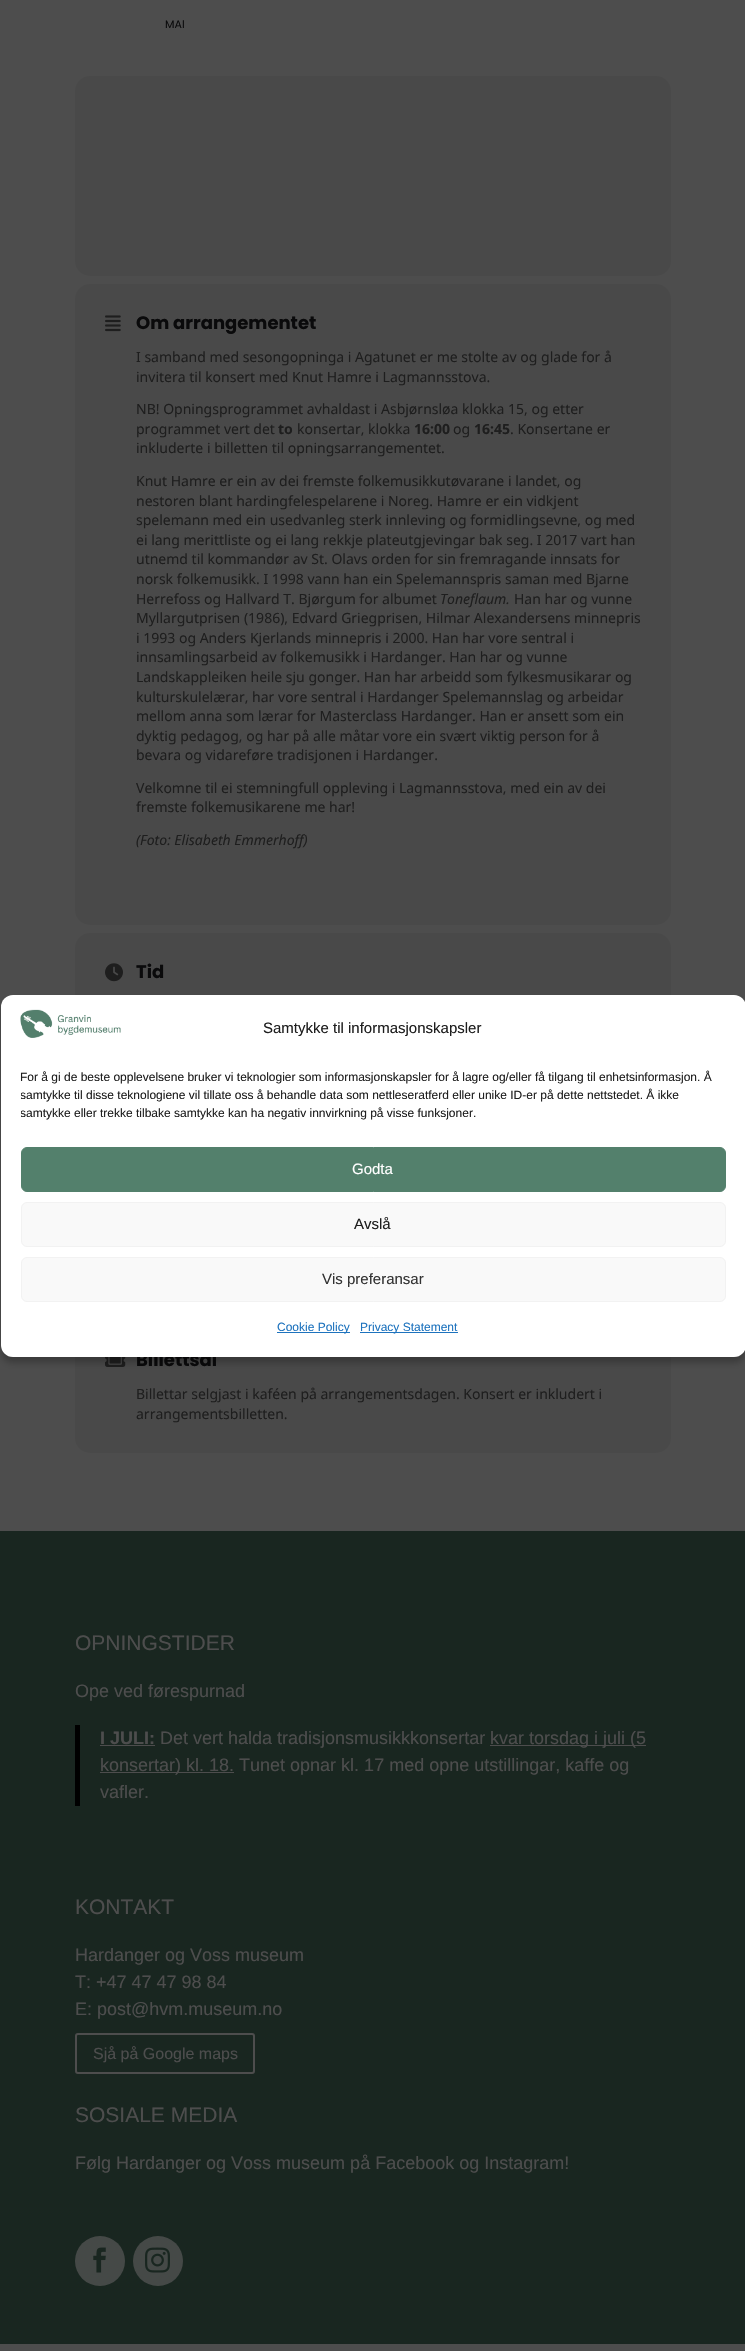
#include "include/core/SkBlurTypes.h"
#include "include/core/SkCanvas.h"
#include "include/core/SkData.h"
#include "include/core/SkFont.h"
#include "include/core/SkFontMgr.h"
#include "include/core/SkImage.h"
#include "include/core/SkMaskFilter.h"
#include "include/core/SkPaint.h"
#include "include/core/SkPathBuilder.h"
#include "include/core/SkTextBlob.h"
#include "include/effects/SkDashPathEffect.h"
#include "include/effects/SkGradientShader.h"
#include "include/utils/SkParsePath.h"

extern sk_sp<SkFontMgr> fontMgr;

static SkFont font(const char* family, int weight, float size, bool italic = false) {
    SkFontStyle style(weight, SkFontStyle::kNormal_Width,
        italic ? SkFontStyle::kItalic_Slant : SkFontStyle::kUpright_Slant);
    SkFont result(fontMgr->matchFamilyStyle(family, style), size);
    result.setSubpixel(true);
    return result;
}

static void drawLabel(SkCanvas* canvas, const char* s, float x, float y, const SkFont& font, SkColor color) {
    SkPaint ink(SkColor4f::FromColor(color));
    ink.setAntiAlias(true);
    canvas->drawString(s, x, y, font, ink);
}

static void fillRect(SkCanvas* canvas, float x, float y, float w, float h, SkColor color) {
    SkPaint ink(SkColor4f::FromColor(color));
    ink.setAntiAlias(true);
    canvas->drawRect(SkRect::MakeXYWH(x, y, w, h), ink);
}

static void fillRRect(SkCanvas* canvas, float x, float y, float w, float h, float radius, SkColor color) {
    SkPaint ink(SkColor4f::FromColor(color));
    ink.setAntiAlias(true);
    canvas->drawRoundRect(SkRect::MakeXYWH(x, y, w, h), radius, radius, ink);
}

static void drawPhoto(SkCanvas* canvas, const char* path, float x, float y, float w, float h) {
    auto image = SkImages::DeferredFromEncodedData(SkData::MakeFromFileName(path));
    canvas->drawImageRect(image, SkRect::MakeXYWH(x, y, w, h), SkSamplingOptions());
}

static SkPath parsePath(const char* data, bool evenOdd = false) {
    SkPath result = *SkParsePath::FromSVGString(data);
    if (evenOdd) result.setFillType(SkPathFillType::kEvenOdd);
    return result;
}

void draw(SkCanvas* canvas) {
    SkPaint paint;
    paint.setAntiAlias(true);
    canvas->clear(0xFF4D4D4D);
    SkFont font1 = font("Poppins", 400, 11);
    drawLabel(canvas, "MAI", 165, 28, font1, 0xFF0A0A0B);
    fillRRect(canvas, 75, 76, 596, 200, 15, 0xFF494949);
    fillRRect(canvas, 75, 284, 596, 641, 15, 0xFF494949);
    drawPhoto(canvas, "assets/img1.png", 105, 315, 16, 17);
    SkFont font2 = font("Poppins", 700, 18);
    drawLabel(canvas, "Om arrangementet", 136, 329, font2, 0xFF0A0A0B);
    SkFont font3 = font("Noto Sans", 400, 14);
    drawLabel(canvas, "I samband med sesongopninga i Agatunet er me stolte av og glade for å", 136, 362, font3, 0xFF1E1E1E);
    drawLabel(canvas, "invitera til konsert med Knut Hamre i Lagmannsstova.", 136, 382, font3, 0xFF1E1E1E);
    drawLabel(canvas, "NB! Opningsprogrammet avhaldast i Asbjørnsløa klokka 15, og etter", 136, 414, font3, 0xFF1E1E1E);
    drawLabel(canvas, "programmet vert det", 136, 434, font3, 0xFF1E1E1E);
    SkFont font4 = font("Noto Sans", 700, 14);
    drawLabel(canvas, "to", 278, 434, font4, 0xFF1E1E1E);
    drawLabel(canvas, "konsertar, klokka", 297, 434, font3, 0xFF1E1E1E);
    drawLabel(canvas, "16:00", 414, 434, font4, 0xFF1E1E1E);
    drawLabel(canvas, "og", 453, 434, font3, 0xFF1E1E1E);
    drawLabel(canvas, "16:45", 474, 434, font4, 0xFF1E1E1E);
    drawLabel(canvas, ". Konsertane er", 510, 434, font3, 0xFF1E1E1E);
    drawLabel(canvas, "inkluderte i billetten til opningsarrangementet.", 136, 453, font3, 0xFF1E1E1E);
    drawLabel(canvas, "Knut Hamre er ein av dei fremste folkemusikkutøvarane i landet, og", 136, 486, font3, 0xFF1E1E1E);
    drawLabel(canvas, "nestoren blant hardingfelespelarene i Noreg. Hamre er ein vidkjent", 136, 506, font3, 0xFF1E1E1E);
    drawLabel(canvas, "spelemann med ein usedvanleg sterk innleving og formidlingsevne, og med", 136, 525, font3, 0xFF1E1E1E);
    drawLabel(canvas, "ei lang merittliste og ei lang rekkje plateutgjevingar bak seg. I 2017 vart han", 136, 545, font3, 0xFF1E1E1E);
    drawLabel(canvas, "utnemd til kommandør av St. Olavs orden for sin fremragande innsats for", 136, 564, font3, 0xFF1E1E1E);
    drawLabel(canvas, "norsk folkemusikk. I 1998 vann han ein Spelemannspris saman med Bjarne", 136, 584, font3, 0xFF1E1E1E);
    drawLabel(canvas, "Herrefoss og Hallvard T. Bjørgum for albumet", 136, 604, font3, 0xFF1E1E1E);
    SkFont font5 = font("Noto Sans", 400, 14, true);
    drawLabel(canvas, "Toneflaum.", 440, 604, font5, 0xFF1E1E1E);
    drawLabel(canvas, "Han har og vunne", 514, 604, font3, 0xFF1E1E1E);
    drawLabel(canvas, "Myllargutprisen (1986), Edvard Griegprisen, Hilmar Alexandersens minnepris", 136, 623, font3, 0xFF1E1E1E);
    drawLabel(canvas, "i 1993 og Anders Kjerlands minnepris i 2000. Han har vore sentral i", 136, 643, font3, 0xFF1E1E1E);
    drawLabel(canvas, "innsamlingsarbeid av folkemusikk i Hardanger. Han har og vunne", 136, 662, font3, 0xFF1E1E1E);
    drawLabel(canvas, "Landskappleiken heile sju gonger. Han har arbeidd som fylkesmusikarar og", 136, 682, font3, 0xFF1E1E1E);
    drawLabel(canvas, "kulturskulelærar, har vore sentral i Hardanger Spelemannslag og arbeidar", 136, 702, font3, 0xFF1E1E1E);
    drawLabel(canvas, "mellom anna som lærar for Masterclass Hardanger. Han er ansett som ein", 136, 721, font3, 0xFF1E1E1E);
    drawLabel(canvas, "dyktig pedagog, og har på alle måtar vore ein svært viktig person for å", 136, 741, font3, 0xFF1E1E1E);
    drawLabel(canvas, "bevara og vidareføre tradisjonen i Hardanger.", 136, 760, font3, 0xFF1E1E1E);
    drawLabel(canvas, "Velkomne til ei stemningfull oppleving i Lagmannsstova, med ein av dei", 136, 793, font3, 0xFF1E1E1E);
    drawLabel(canvas, "fremste folkemusikarene me har!", 136, 812, font3, 0xFF1E1E1E);
    drawLabel(canvas, "(Foto: Elisabeth Emmerhoff)", 136, 845, font5, 0xFF1E1E1E);
    fillRRect(canvas, 75, 933, 596, 118, 15, 0xFF494949);
    drawPhoto(canvas, "assets/img2.png", 105, 963, 18, 19);
    drawLabel(canvas, "Tid", 136, 978, font2, 0xFF0A0A0B);
    fillRRect(canvas, 75, 1321, 596, 132, 15, 0xFF494949);
    drawPhoto(canvas, "assets/img3.png", 105, 1357, 21, 10);
    drawLabel(canvas, "Billettsal", 136, 1366, font2, 0xFF0A0A0B);
    drawLabel(canvas, "Billettar selgjast i kaféen på arrangementsdagen. Konsert er inkludert i", 136, 1399, font3, 0xFF1E1E1E);
    drawLabel(canvas, "arrangementsbilletten.", 136, 1419, font3, 0xFF1E1E1E);
    fillRect(canvas, 0, 1531, 745, 813, 0xFF192620);
    SkFont font6 = font("Liberation Sans", 400, 21);
    drawLabel(canvas, "OPNINGSTIDER", 75, 1650, font6, 0xFF4D4D4D);
    SkFont font7 = font("Liberation Sans", 400, 18);
    drawLabel(canvas, "Ope ved førespurnad", 75, 1697, font7, 0xFF4D4D4D);
    fillRect(canvas, 75, 1725, 5, 81, 0xFF000000);
    SkFont font8 = font("Liberation Sans", 700, 18);
    drawLabel(canvas, "I JULI:", 100, 1744, font8, 0xFF4D4D4D);
    fillRect(canvas, 100, 1745, 55, 1, 0xFF4D4D4D);
    drawLabel(canvas, "Det vert halda tradisjonsmusikkkonsertar", 160, 1744, font7, 0xFF4D4D4D);
    fillRect(canvas, 490, 1745, 156, 1, 0xFF4D4D4D);
    drawLabel(canvas, "kvar torsdag i juli (5", 490, 1744, font7, 0xFF4D4D4D);
    fillRect(canvas, 100, 1772, 134, 1, 0xFF4D4D4D);
    drawLabel(canvas, "konsertar) kl. 18. Tunet opnar kl. 17 med opne utstillingar, kaffe og", 100, 1771, font7, 0xFF4D4D4D);
    drawLabel(canvas, "vafler.", 100, 1798, font7, 0xFF4D4D4D);
    drawLabel(canvas, "KONTAKT", 75, 1914, font6, 0xFF4D4D4D);
    drawLabel(canvas, "Hardanger og Voss museum", 75, 1961, font7, 0xFF4D4D4D);
    drawLabel(canvas, "T: +47 47 47 98 84", 75, 1988, font7, 0xFF4D4D4D);
    drawLabel(canvas, "E: post@hvm.museum.no", 75, 2015, font7, 0xFF4D4D4D);
    paint.setStroke(true);
    paint.setStrokeWidth(2);
    paint.setColor(0xFF4D4D4D);
    canvas->drawRoundRect(SkRect::MakeXYWH(76, 2034, 178, 39), 2, 2, paint);
    SkFont font9 = font("Liberation Sans", 400, 16);
    drawLabel(canvas, "Sjå på Google maps", 93, 2059, font9, 0xFF4D4D4D);
    drawLabel(canvas, "SOSIALE MEDIA", 75, 2122, font6, 0xFF4D4D4D);
    drawLabel(canvas, "Følg Hardanger og Voss museum på Facebook og Instagram!", 75, 2169, font7, 0xFF4D4D4D);
    paint.setStroke(false);
    paint.setColor(0xFF454947);
    canvas->drawCircle(100, 2261, 25, paint);
    drawPhoto(canvas, "assets/img4.png", 93, 2247, 13, 26);
    canvas->drawCircle(158, 2261, 25, paint);
    drawPhoto(canvas, "assets/img5.png", 145, 2247, 25, 26);
    canvas->save();
    canvas->clipPath(parsePath("M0 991H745V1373H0ZM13 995H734C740.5 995 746 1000.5 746 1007V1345C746 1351.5 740.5 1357 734 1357H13C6.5 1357 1 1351.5 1 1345V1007C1 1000.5 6.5 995 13 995Z", true), true);
    paint.setColor(0x3B000000);
    paint.setMaskFilter(SkMaskFilter::MakeBlur(kNormal_SkBlurStyle, 3));
    canvas->drawRoundRect(SkRect::MakeXYWH(1, 1001, 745, 362), 12, 12, paint);
    paint.setMaskFilter(nullptr);
    canvas->restore();
    fillRRect(canvas, 1, 995, 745, 362, 12, 0xFFFFFFFF);
    drawPhoto(canvas, "assets/img6.png", 20, 1009, 101, 29);
    SkFont font10 = font("Liberation Sans", 400, 15);
    drawLabel(canvas, "Samtykke til informasjonskapsler", 263, 1033, font10, 0xFF1E1E1E);
    SkFont font11 = font("Liberation Sans", 400, 12);
    drawLabel(canvas, "For å gi de beste opplevelsene bruker vi teknologier som informasjonskapsler for å lagre og/eller få tilgang til enhetsinformasjon. Å", 20, 1081, font11, 0xFF1E1E1E);
    canvas->save();
    canvas->clipRect(SkRect::MakeXYWH(21, 1068, 705, 59));
    drawLabel(canvas, "samtykke til disse teknologiene vil tillate oss å behandle data som nettleseratferd eller unike ID-er på dette nettstedet. Å ikke", 20, 1099, font11, 0xFF1E1E1E);
    drawLabel(canvas, "samtykke eller trekke tilbake samtykke kan ha negativ innvirkning på visse funksjoner.", 20, 1117, font11, 0xFF1E1E1E);
    canvas->restore();
    paint.setColor(0xFF53806C);
    canvas->drawRoundRect(SkRect::MakeXYWH(21.5f, 1147.5f, 704, 44), 5.5f, 5.5f, paint);
    paint.setStroke(true);
    paint.setStrokeWidth(1);
    canvas->drawRoundRect(SkRect::MakeXYWH(21.5f, 1147.5f, 704, 44), 5.5f, 5.5f, paint);
    drawLabel(canvas, "Godta", 352, 1174, font10, 0xFFFFFFFF);
    paint.setStroke(false);
    paint.setColor(0xFFF9F9F9);
    canvas->drawRoundRect(SkRect::MakeXYWH(21.5f, 1202.5f, 704, 44), 5.5f, 5.5f, paint);
    paint.setStroke(true);
    paint.setColor(0xFFF2F2F2);
    canvas->drawRoundRect(SkRect::MakeXYWH(21.5f, 1202.5f, 704, 44), 5.5f, 5.5f, paint);
    drawLabel(canvas, "Avslå", 354, 1229, font10, 0xFF1E1E1E);
    paint.setStroke(false);
    paint.setColor(0xFFF9F9F9);
    canvas->drawRoundRect(SkRect::MakeXYWH(21.5f, 1257.5f, 704, 44), 5.5f, 5.5f, paint);
    paint.setStroke(true);
    paint.setColor(0xFFF2F2F2);
    canvas->drawRoundRect(SkRect::MakeXYWH(21.5f, 1257.5f, 704, 44), 5.5f, 5.5f, paint);
    drawLabel(canvas, "Vis preferansar", 322, 1284, font10, 0xFF333333);
    fillRect(canvas, 277, 1332, 73, 1, 0xFF1E73BE);
    drawLabel(canvas, "Cookie Policy", 277, 1331, font11, 0xFF1E73BE);
    fillRect(canvas, 360, 1332, 98, 1, 0xFF1E73BE);
    drawLabel(canvas, "Privacy Statement", 360, 1331, font11, 0xFF1E73BE);
}
